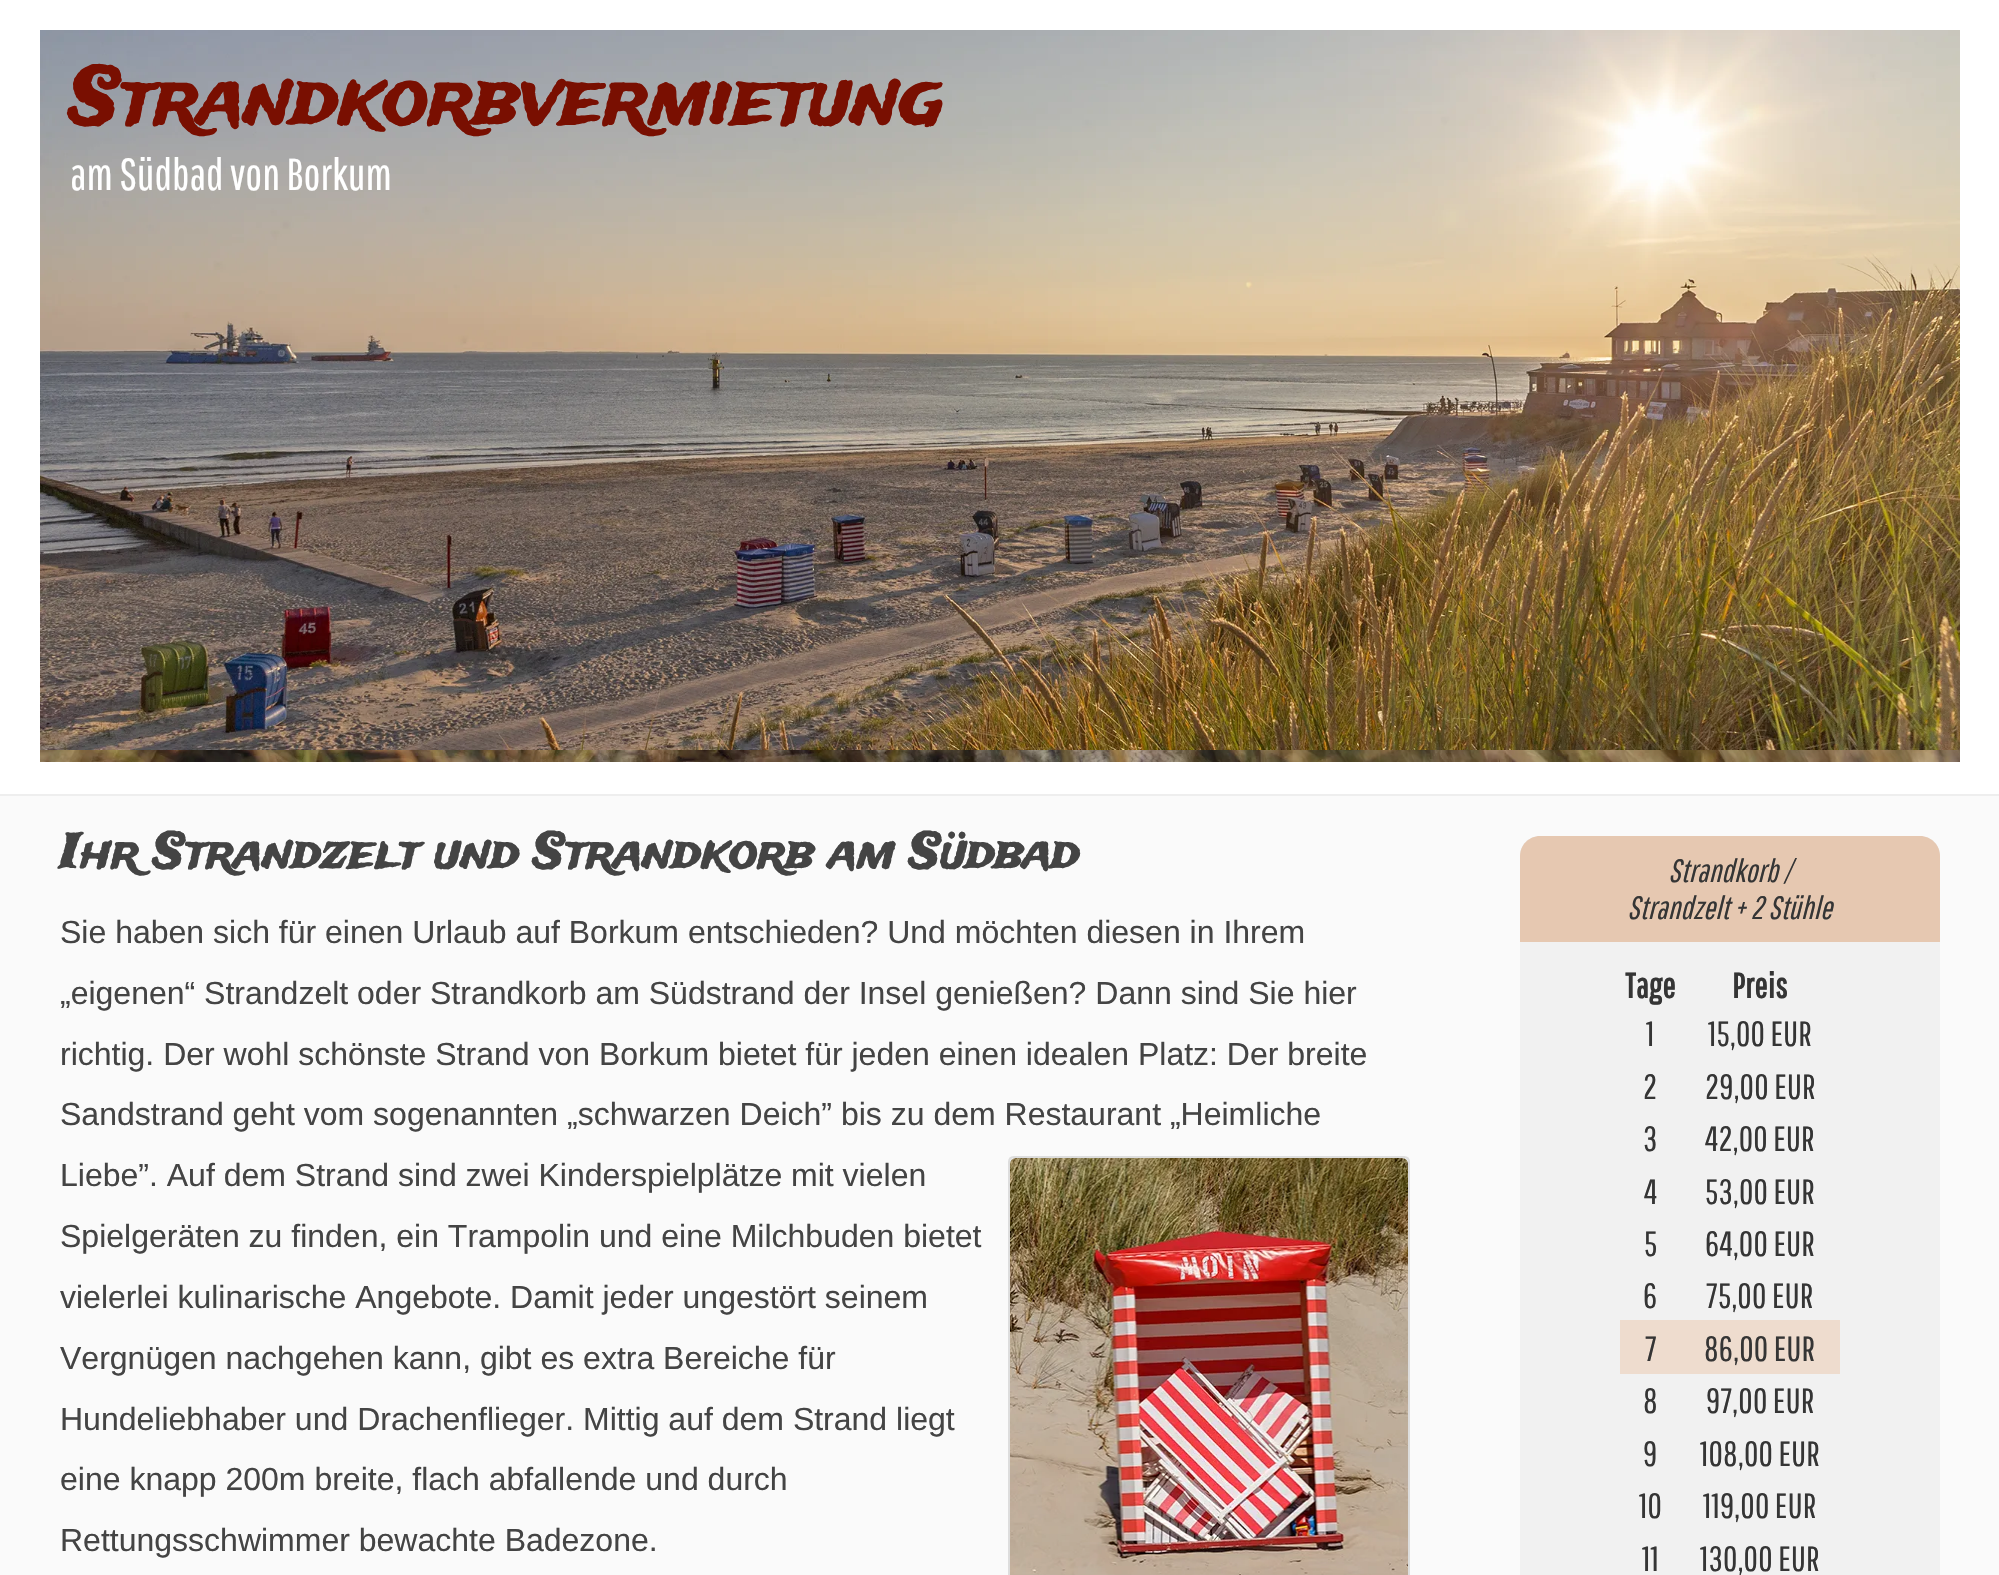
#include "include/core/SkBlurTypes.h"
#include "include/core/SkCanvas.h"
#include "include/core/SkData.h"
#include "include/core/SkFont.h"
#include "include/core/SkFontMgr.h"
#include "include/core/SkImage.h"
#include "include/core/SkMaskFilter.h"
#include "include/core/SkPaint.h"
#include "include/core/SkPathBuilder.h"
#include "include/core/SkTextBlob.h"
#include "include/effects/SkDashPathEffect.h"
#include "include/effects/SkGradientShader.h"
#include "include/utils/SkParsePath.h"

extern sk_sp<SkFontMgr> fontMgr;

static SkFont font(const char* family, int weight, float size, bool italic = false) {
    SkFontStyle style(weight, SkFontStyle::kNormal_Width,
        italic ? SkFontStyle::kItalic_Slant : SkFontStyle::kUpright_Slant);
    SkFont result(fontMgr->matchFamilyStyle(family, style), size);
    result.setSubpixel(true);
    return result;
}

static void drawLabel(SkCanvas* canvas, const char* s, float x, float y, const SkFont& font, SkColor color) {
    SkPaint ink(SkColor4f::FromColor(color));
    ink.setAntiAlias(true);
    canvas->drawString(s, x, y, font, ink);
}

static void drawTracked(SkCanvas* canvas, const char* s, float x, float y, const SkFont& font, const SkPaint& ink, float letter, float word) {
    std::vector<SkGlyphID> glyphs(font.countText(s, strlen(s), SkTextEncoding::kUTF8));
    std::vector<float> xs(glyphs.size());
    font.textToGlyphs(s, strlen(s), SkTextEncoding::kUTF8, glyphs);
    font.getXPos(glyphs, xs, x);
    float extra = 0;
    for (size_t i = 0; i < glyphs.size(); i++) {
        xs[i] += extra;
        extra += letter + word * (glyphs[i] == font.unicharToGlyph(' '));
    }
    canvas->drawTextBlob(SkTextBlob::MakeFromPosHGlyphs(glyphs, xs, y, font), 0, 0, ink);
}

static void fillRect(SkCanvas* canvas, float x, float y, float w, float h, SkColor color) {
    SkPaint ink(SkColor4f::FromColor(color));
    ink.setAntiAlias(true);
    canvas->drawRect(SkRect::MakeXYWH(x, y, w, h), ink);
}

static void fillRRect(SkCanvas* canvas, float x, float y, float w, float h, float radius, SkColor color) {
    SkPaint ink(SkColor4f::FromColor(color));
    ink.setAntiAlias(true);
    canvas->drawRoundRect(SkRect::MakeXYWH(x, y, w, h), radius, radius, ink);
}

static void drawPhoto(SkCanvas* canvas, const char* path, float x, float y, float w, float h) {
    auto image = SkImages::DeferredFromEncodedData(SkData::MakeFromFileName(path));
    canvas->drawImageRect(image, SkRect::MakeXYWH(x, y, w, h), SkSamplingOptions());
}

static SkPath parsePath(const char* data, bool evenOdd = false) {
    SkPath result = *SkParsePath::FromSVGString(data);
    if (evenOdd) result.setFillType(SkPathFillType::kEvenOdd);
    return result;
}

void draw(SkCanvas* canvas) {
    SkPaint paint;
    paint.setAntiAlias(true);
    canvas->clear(0xFFFAFAFA);
    fillRect(canvas, 0, 0, 1999, 794, 0xFFFFFFFF);
    fillRect(canvas, 0, 794, 1999, 2, 0xFFEEEEEE);
    drawPhoto(canvas, "assets/img1.png", 40, 30, 1920, 720);
    SkFont font1 = font("Trade Winds", 700, 76.75f);
    drawLabel(canvas, "Strandkorbvermietung", 70, 124, font1, 0xFF790F01);
    SkFont font2 = font("Pathway Gothic One", 400, 44.75f);
    drawLabel(canvas, "am Südbad von Borkum", 70, 190, font2, 0xFFFFFFFF);
    drawPhoto(canvas, "assets/img2.png", 40, 750, 1920, 12);
    SkFont font3 = font("Trade Winds", 700, 48);
    drawLabel(canvas, "Ihr Strandzelt und Strandkorb am Südbad", 60, 868, font3, 0xFF444444);
    SkFont font4 = font("Liberation Sans", 400, 32);
    drawLabel(canvas, "Sie haben sich für einen Urlaub auf Borkum entschieden? Und möchten diesen in Ihrem", 60, 943, font4, 0xFF444444);
    drawLabel(canvas, "„eigenen“ Strandzelt oder Strandkorb am Südstrand der Insel genießen? Dann sind Sie hier", 60, 1004, font4, 0xFF444444);
    drawLabel(canvas, "richtig. Der wohl schönste Strand von Borkum bietet für jeden einen idealen Platz: Der breite", 60, 1065, font4, 0xFF444444);
    drawLabel(canvas, "Sandstrand geht vom sogenannten „schwarzen Deich” bis zu dem Restaurant „Heimliche", 60, 1125, font4, 0xFF444444);
    drawLabel(canvas, "Liebe”. Auf dem Strand sind zwei Kinderspielplätze mit vielen", 60, 1186, font4, 0xFF444444);
    paint.setColor(0xFFEEEEEE);
    canvas->drawPath(parsePath("M1014 1157H1404C1407 1157 1409 1159 1409 1162V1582H1009V1162C1009 1159 1011 1157 1014 1157Z"), paint);
    paint.setStroke(true);
    paint.setStrokeWidth(2);
    paint.setColor(0xFFDDDDDD);
    canvas->drawPath(parsePath("M1014 1157H1404C1407 1157 1409 1159 1409 1162V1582H1009V1162C1009 1159 1011 1157 1014 1157Z"), paint);
    drawPhoto(canvas, "assets/img3.png", 1010, 1158, 398, 417);
    drawLabel(canvas, "Spielgeräten zu finden, ein Trampolin und eine Milchbuden bietet", 60, 1247, font4, 0xFF444444);
    drawLabel(canvas, "vielerlei kulinarische Angebote. Damit jeder ungestört seinem", 60, 1308, font4, 0xFF444444);
    drawLabel(canvas, "Vergnügen nachgehen kann, gibt es extra Bereiche für", 60, 1369, font4, 0xFF444444);
    drawLabel(canvas, "Hundeliebhaber und Drachenflieger. Mittig auf dem Strand liegt", 60, 1430, font4, 0xFF444444);
    drawLabel(canvas, "eine knapp 200m breite, flach abfallende und durch", 60, 1490, font4, 0xFF444444);
    drawLabel(canvas, "Rettungsschwimmer bewachte Badezone.", 60, 1551, font4, 0xFF444444);
    fillRRect(canvas, 1520, 836, 420, 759, 20, 0xFFF1F1F1);
    paint.setStroke(false);
    paint.setColor(0xFFE6C8B1);
    canvas->drawPath(parsePath("M1540 836H1920C1931 836 1940 845 1940 856V942H1520V856C1520 845 1529 836 1540 836Z"), paint);
    SkFont font5 = font("Pathway Gothic One", 400, 32, true);
    drawLabel(canvas, "Strandkorb /", 1668, 882, font5, 0xFF353535);
    drawLabel(canvas, "Strandzelt + 2 Stühle", 1627, 919, font5, 0xFF353535);
    SkFont font6 = font("Pathway Gothic One", 700, 35);
    paint.setColor(0xFF353535);
    drawTracked(canvas, "Tage", 1625, 998, font6, paint, 0.25f, 0);
    drawTracked(canvas, "Preis", 1732, 998, font6, paint, 0.25f, 0);
    SkFont font7 = font("Pathway Gothic One", 400, 35);
    drawTracked(canvas, "1", 1646, 1046, font7, paint, 0.25f, 0);
    drawTracked(canvas, "15,00 EUR", 1708, 1046, font7, paint, 0.25f, 0);
    drawTracked(canvas, "2", 1643, 1099, font7, paint, 0.25f, 0);
    drawTracked(canvas, "29,00 EUR", 1705, 1099, font7, paint, 0.25f, 0);
    drawTracked(canvas, "3", 1643, 1151, font7, paint, 0.25f, 0);
    drawTracked(canvas, "42,00 EUR", 1705, 1151, font7, paint, 0.25f, 0);
    drawTracked(canvas, "4", 1644, 1204, font7, paint, 0.25f, 0);
    drawTracked(canvas, "53,00 EUR", 1705, 1204, font7, paint, 0.25f, 0);
    drawTracked(canvas, "5", 1644, 1256, font7, paint, 0.25f, 0);
    drawTracked(canvas, "64,00 EUR", 1705, 1256, font7, paint, 0.25f, 0);
    drawTracked(canvas, "6", 1643, 1308, font7, paint, 0.25f, 0);
    drawTracked(canvas, "75,00 EUR", 1706, 1308, font7, paint, 0.25f, 0);
    fillRect(canvas, 1620, 1320, 220, 54, 0xFFEEDCCE);
    drawTracked(canvas, "7", 1645, 1361, font7, paint, 0.25f, 0);
    drawTracked(canvas, "86,00 EUR", 1704, 1361, font7, paint, 0.25f, 0);
    drawTracked(canvas, "8", 1643, 1413, font7, paint, 0.25f, 0);
    drawTracked(canvas, "97,00 EUR", 1706, 1413, font7, paint, 0.25f, 0);
    drawTracked(canvas, "9", 1643, 1466, font7, paint, 0.25f, 0);
    drawTracked(canvas, "108,00 EUR", 1700, 1466, font7, paint, 0.25f, 0);
    drawTracked(canvas, "10", 1639, 1518, font7, paint, 0.25f, 0);
    drawTracked(canvas, "119,00 EUR", 1703, 1518, font7, paint, 0.25f, 0);
    drawTracked(canvas, "11", 1642, 1571, font7, paint, 0.25f, 0);
    drawTracked(canvas, "130,00 EUR", 1700, 1571, font7, paint, 0.25f, 0);
}
